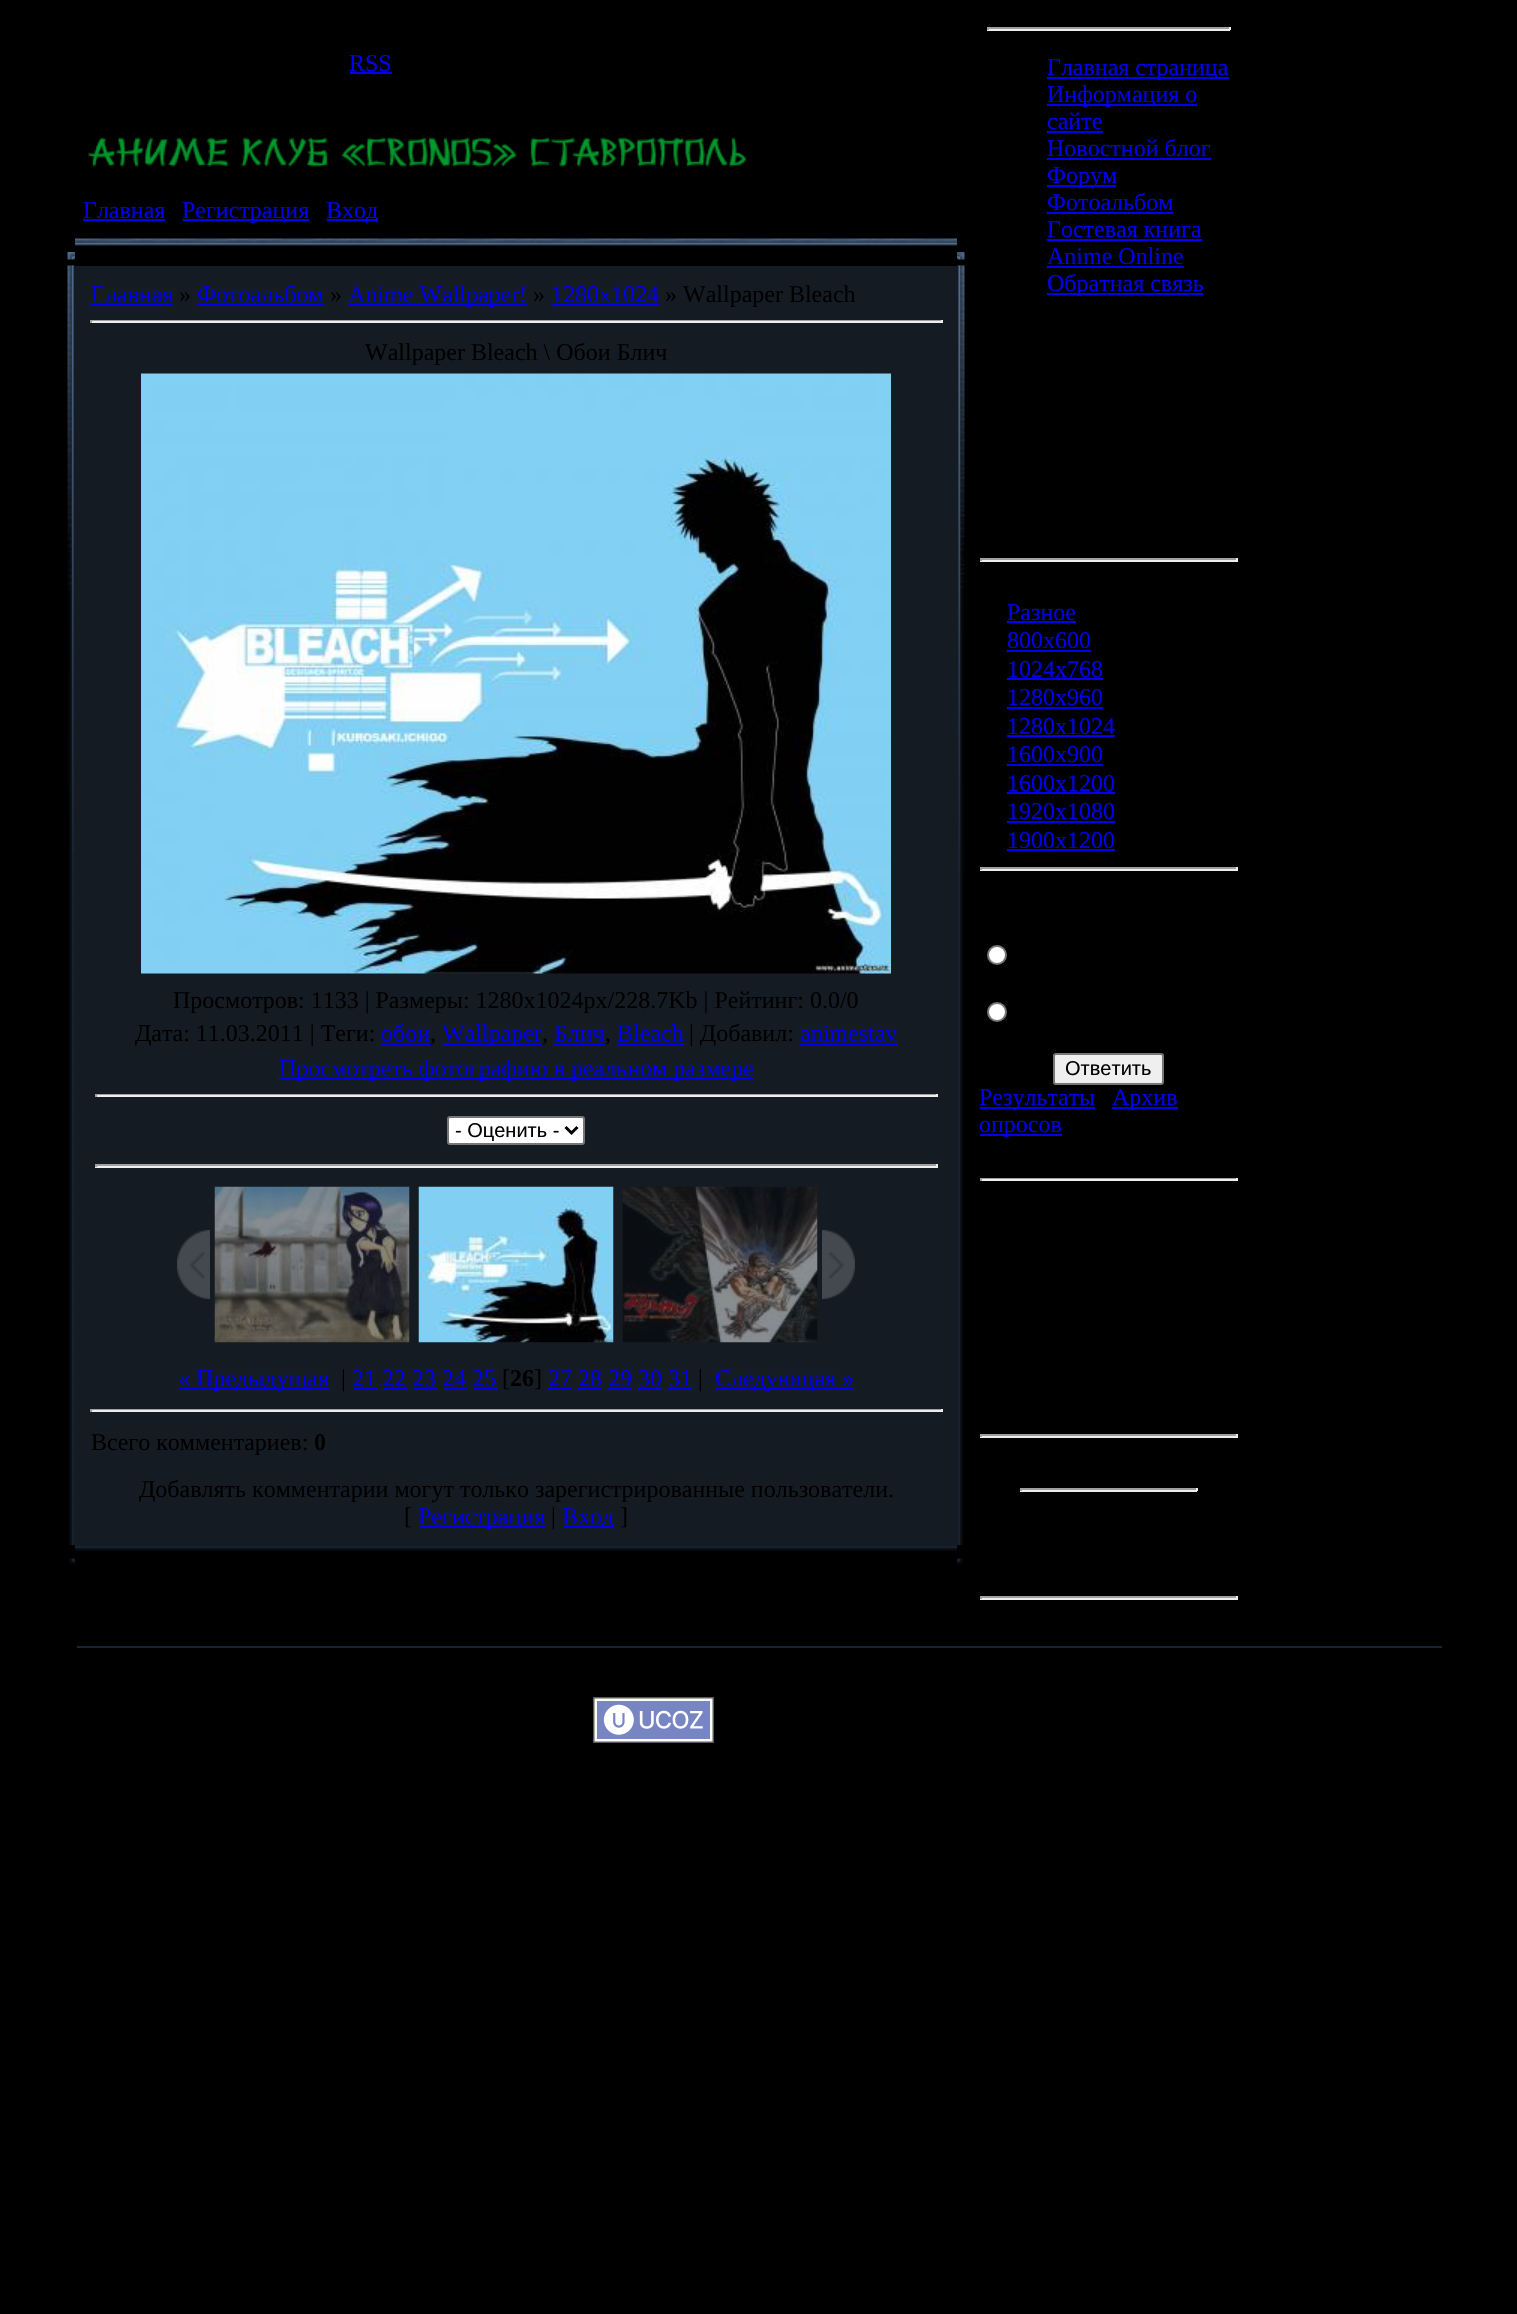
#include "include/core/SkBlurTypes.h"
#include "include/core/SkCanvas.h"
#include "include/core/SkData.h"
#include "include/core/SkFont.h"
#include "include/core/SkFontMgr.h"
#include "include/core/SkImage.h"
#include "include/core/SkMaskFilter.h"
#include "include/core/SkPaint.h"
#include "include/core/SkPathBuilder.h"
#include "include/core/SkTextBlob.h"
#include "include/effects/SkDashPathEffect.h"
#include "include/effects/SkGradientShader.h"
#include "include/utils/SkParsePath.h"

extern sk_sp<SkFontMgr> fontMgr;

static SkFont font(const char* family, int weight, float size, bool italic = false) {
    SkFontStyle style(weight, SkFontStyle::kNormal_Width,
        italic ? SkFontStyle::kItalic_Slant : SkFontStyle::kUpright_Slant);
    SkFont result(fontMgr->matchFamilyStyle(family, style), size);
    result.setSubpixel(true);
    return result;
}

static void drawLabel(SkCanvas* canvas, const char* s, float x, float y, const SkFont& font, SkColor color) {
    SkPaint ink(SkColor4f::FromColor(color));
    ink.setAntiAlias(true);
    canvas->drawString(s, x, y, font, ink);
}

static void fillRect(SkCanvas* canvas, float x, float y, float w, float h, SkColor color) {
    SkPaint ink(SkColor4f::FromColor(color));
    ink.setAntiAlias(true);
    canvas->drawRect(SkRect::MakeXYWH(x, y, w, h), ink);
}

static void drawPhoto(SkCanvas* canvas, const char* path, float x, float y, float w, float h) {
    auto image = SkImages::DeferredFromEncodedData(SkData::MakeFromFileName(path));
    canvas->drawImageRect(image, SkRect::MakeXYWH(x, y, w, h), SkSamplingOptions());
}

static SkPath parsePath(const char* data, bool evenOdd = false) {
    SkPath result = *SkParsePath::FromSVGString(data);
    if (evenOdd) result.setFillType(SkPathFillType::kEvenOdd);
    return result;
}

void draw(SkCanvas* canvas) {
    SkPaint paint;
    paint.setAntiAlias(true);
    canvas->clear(0xFF000000);
    SkFont font1 = font("Liberation Serif", 400, 24);
    drawLabel(canvas, "RSS", 349, 71, font1, 0xFF0000EE);
    fillRect(canvas, 350, 72, 42, 2, 0xFF0000EE);
    drawPhoto(canvas, "assets/img1.png", 88, 137, 659, 30);
    drawLabel(canvas, "Главная", 83, 218, font1, 0xFF0000EE);
    fillRect(canvas, 83, 219, 82, 2, 0xFF0000EE);
    fillRect(canvas, 183, 219, 126, 2, 0xFF0000EE);
    drawLabel(canvas, "Регистрация", 182, 218, font1, 0xFF0000EE);
    fillRect(canvas, 327, 219, 51, 2, 0xFF0000EE);
    drawLabel(canvas, "Вход", 326, 218, font1, 0xFF0000EE);
    drawPhoto(canvas, "assets/img2.png", 75, 238, 882, 8);
    drawPhoto(canvas, "assets/img3.png", 67, 252, 8, 8);
    drawPhoto(canvas, "assets/img4.png", 957, 252, 8, 8);
    drawPhoto(canvas, "assets/img5.png", 69, 265, 6, 1280);
    drawPhoto(canvas, "assets/img6.png", 67, 265, 8, 588);
    fillRect(canvas, 75, 266, 882, 1279, 0xFF141B23);
    drawLabel(canvas, "Главная", 91, 302, font1, 0xFF0000EE);
    fillRect(canvas, 90, 303, 83, 2, 0xFF0000EE);
    drawLabel(canvas, "»", 179, 302, font1, 0xFF000000);
    drawLabel(canvas, "Фотоальбом", 197, 302, font1, 0xFF0000EE);
    fillRect(canvas, 197, 303, 127, 2, 0xFF0000EE);
    drawLabel(canvas, "»", 330, 302, font1, 0xFF000000);
    fillRect(canvas, 348, 303, 179, 2, 0xFF0000EE);
    drawLabel(canvas, "Anime Wallpaper!", 348, 302, font1, 0xFF0000EE);
    drawLabel(canvas, "»", 533, 302, font1, 0xFF000000);
    drawLabel(canvas, "1280x1024", 551, 302, font1, 0xFF0000EE);
    fillRect(canvas, 551, 303, 108, 2, 0xFF0000EE);
    drawLabel(canvas, "» Wallpaper Bleach", 665, 302, font1, 0xFF000000);
    fillRect(canvas, 90, 320, 852, 1, 0xFF9F9F9F);
    fillRect(canvas, 941, 320, 2, 3, 0xFFEEEEEE);
    fillRect(canvas, 90, 321, 852, 2, 0xFFEEEEEE);
    fillRect(canvas, 90, 320, 2, 3, 0xFF9F9F9F);
    drawLabel(canvas, "Wallpaper Bleach \\ Обои Блич", 365, 360, font1, 0xFF000000);
    drawPhoto(canvas, "assets/img7.png", 141, 373, 750, 601);
    drawLabel(canvas, "Просмотров: 1133 | Размеры: 1280x1024px/228.7Kb | Рейтинг: 0.0/0", 173, 1008, font1, 0xFF000000);
    drawLabel(canvas, "Дата: 11.03.2011 | Теги:", 135, 1041, font1, 0xFF000000);
    drawLabel(canvas, "обои", 381, 1041, font1, 0xFF0000EE);
    fillRect(canvas, 381, 1043, 50, 2, 0xFF0000EE);
    drawLabel(canvas, ",", 430, 1041, font1, 0xFF000000);
    fillRect(canvas, 443, 1043, 99, 2, 0xFF0000EE);
    drawLabel(canvas, "Wallpaper", 442, 1041, font1, 0xFF0000EE);
    drawLabel(canvas, ",", 542, 1041, font1, 0xFF000000);
    drawLabel(canvas, "Блич", 554, 1041, font1, 0xFF0000EE);
    drawLabel(canvas, ",", 605, 1041, font1, 0xFF000000);
    fillRect(canvas, 554, 1043, 51, 2, 0xFF0000EE);
    fillRect(canvas, 617, 1043, 67, 2, 0xFF0000EE);
    drawLabel(canvas, "Bleach", 617, 1041, font1, 0xFF0000EE);
    drawLabel(canvas, "| Добавил:", 689, 1041, font1, 0xFF000000);
    drawLabel(canvas, "animestav", 800, 1041, font1, 0xFF0000EE);
    fillRect(canvas, 800, 1043, 97, 2, 0xFF0000EE);
    fillRect(canvas, 279, 1077, 474, 2, 0xFF0000EE);
    drawLabel(canvas, "Просмотреть фотографию в реальном размере", 279, 1076, font1, 0xFF0000EE);
    fillRect(canvas, 95, 1094, 843, 1, 0xFF9F9F9F);
    fillRect(canvas, 936, 1094, 2, 3, 0xFFEEEEEE);
    fillRect(canvas, 95, 1095, 843, 2, 0xFFEEEEEE);
    fillRect(canvas, 95, 1094, 2, 3, 0xFF9F9F9F);
    paint.setColor(0xFFFFFFFF);
    canvas->drawRoundRect(SkRect::MakeXYWH(448, 1117, 136, 27), 2, 2, paint);
    paint.setStroke(true);
    paint.setStrokeWidth(2);
    paint.setColor(0xFF767676);
    canvas->drawRoundRect(SkRect::MakeXYWH(448, 1117, 136, 27), 2, 2, paint);
    paint.setStrokeWidth(3);
    paint.setColor(0xFF000000);
    canvas->drawPath(parsePath("M565.5 1127L571.5 1133L577.5 1127"), paint);
    SkFont font2 = font("Liberation Sans", 400, 20);
    drawLabel(canvas, "- Оценить -", 455, 1137, font2, 0xFF000000);
    fillRect(canvas, 95, 1164, 843, 2, 0xFF9F9F9F);
    fillRect(canvas, 936, 1164, 2, 3, 0xFFEEEEEE);
    fillRect(canvas, 95, 1166, 843, 2, 0xFFEEEEEE);
    fillRect(canvas, 95, 1164, 2, 3, 0xFF9F9F9F);
    drawPhoto(canvas, "assets/img8.png", 177, 1230, 33, 69);
    drawPhoto(canvas, "assets/img9.png", 214, 1186, 196, 157);
    drawPhoto(canvas, "assets/img10.png", 418, 1186, 196, 157);
    drawPhoto(canvas, "assets/img11.png", 622, 1186, 196, 157);
    drawPhoto(canvas, "assets/img12.png", 822, 1230, 33, 69);
    fillRect(canvas, 179, 1388, 150, 2, 0xFF0000EE);
    drawLabel(canvas, "« Предыдущая", 178, 1386, font1, 0xFF0000EE);
    drawLabel(canvas, "|", 341, 1386, font1, 0xFF000000);
    drawLabel(canvas, "21 22 23 24 25", 352, 1386, font1, 0xFF0000EE);
    fillRect(canvas, 353, 1388, 24, 2, 0xFF0000EE);
    drawLabel(canvas, "[", 502, 1386, font1, 0xFF000000);
    SkFont font3 = font("Liberation Serif", 700, 24);
    drawLabel(canvas, "26", 510, 1386, font3, 0xFF000000);
    drawLabel(canvas, "]", 534, 1386, font1, 0xFF000000);
    drawLabel(canvas, "27 28 29 30 31", 548, 1386, font1, 0xFF0000EE);
    fillRect(canvas, 548, 1388, 24, 2, 0xFF0000EE);
    drawLabel(canvas, "|", 698, 1386, font1, 0xFF000000);
    fillRect(canvas, 716, 1388, 138, 2, 0xFF0000EE);
    drawLabel(canvas, "Следующая »", 715, 1386, font1, 0xFF0000EE);
    fillRect(canvas, 383, 1388, 24, 2, 0xFF0000EE);
    fillRect(canvas, 413, 1388, 24, 2, 0xFF0000EE);
    fillRect(canvas, 443, 1388, 24, 2, 0xFF0000EE);
    fillRect(canvas, 473, 1388, 24, 2, 0xFF0000EE);
    fillRect(canvas, 578, 1388, 24, 2, 0xFF0000EE);
    fillRect(canvas, 608, 1388, 24, 2, 0xFF0000EE);
    fillRect(canvas, 638, 1388, 24, 2, 0xFF0000EE);
    fillRect(canvas, 668, 1388, 24, 2, 0xFF0000EE);
    fillRect(canvas, 90, 1409, 852, 1, 0xFF9F9F9F);
    fillRect(canvas, 941, 1409, 2, 3, 0xFFEEEEEE);
    fillRect(canvas, 90, 1410, 852, 2, 0xFFEEEEEE);
    fillRect(canvas, 90, 1409, 2, 3, 0xFF9F9F9F);
    drawLabel(canvas, "Всего комментариев:", 91, 1450, font1, 0xFF000000);
    drawLabel(canvas, "0", 314, 1450, font3, 0xFF000000);
    drawLabel(canvas, "Добавлять комментарии могут только зарегистрированные пользователи.", 139, 1497, font1, 0xFF000000);
    drawLabel(canvas, "[", 404, 1524, font1, 0xFF000000);
    fillRect(canvas, 419, 1526, 126, 2, 0xFF0000EE);
    drawLabel(canvas, "Регистрация", 418, 1524, font1, 0xFF0000EE);
    drawLabel(canvas, "|", 551, 1524, font1, 0xFF000000);
    fillRect(canvas, 563, 1526, 51, 2, 0xFF0000EE);
    drawLabel(canvas, "Вход", 562, 1524, font1, 0xFF0000EE);
    drawLabel(canvas, "]", 620, 1524, font1, 0xFF000000);
    drawPhoto(canvas, "assets/img13.png", 957, 265, 6, 1280);
    drawPhoto(canvas, "assets/img14.png", 957, 265, 8, 611);
    drawPhoto(canvas, "assets/img15.png", 75, 1545, 882, 6);
    drawPhoto(canvas, "assets/img16.png", 69, 1558, 6, 7);
    drawPhoto(canvas, "assets/img17.png", 957, 1558, 6, 7);
    fillRect(canvas, 987, 27, 243, 2, 0xFF9F9F9F);
    fillRect(canvas, 1229, 27, 2, 3, 0xFFEEEEEE);
    fillRect(canvas, 987, 29, 243, 2, 0xFFEEEEEE);
    fillRect(canvas, 987, 27, 2, 3, 0xFF9F9F9F);
    fillRect(canvas, 1047, 77, 182, 2, 0xFF0000EE);
    drawLabel(canvas, "Главная страница", 1047, 75, font1, 0xFF0000EE);
    fillRect(canvas, 1047, 104, 150, 2, 0xFF0000EE);
    drawLabel(canvas, "Информация о", 1047, 102, font1, 0xFF0000EE);
    drawLabel(canvas, "сайте", 1047, 129, font1, 0xFF0000EE);
    fillRect(canvas, 1047, 131, 56, 2, 0xFF0000EE);
    drawLabel(canvas, "Новостной блог", 1047, 156, font1, 0xFF0000EE);
    fillRect(canvas, 1047, 158, 164, 2, 0xFF0000EE);
    fillRect(canvas, 1047, 185, 69, 2, 0xFF0000EE);
    drawLabel(canvas, "Форум", 1047, 183, font1, 0xFF0000EE);
    drawLabel(canvas, "Фотоальбом", 1047, 210, font1, 0xFF0000EE);
    fillRect(canvas, 1047, 212, 126, 2, 0xFF0000EE);
    drawLabel(canvas, "Гостевая книга", 1047, 237, font1, 0xFF0000EE);
    fillRect(canvas, 1047, 239, 155, 2, 0xFF0000EE);
    drawLabel(canvas, "Anime Online", 1047, 264, font1, 0xFF0000EE);
    fillRect(canvas, 1047, 266, 137, 2, 0xFF0000EE);
    fillRect(canvas, 1047, 293, 156, 2, 0xFF0000EE);
    drawLabel(canvas, "Обратная связь", 1047, 291, font1, 0xFF0000EE);
    fillRect(canvas, 980, 558, 258, 2, 0xFF9F9F9F);
    fillRect(canvas, 1236, 558, 2, 3, 0xFFEEEEEE);
    fillRect(canvas, 980, 560, 258, 2, 0xFFEEEEEE);
    fillRect(canvas, 980, 558, 2, 3, 0xFF9F9F9F);
    drawLabel(canvas, "Разное", 1007, 620, font1, 0xFF0000EE);
    fillRect(canvas, 1007, 621, 69, 2, 0xFF0000EE);
    drawLabel(canvas, "800x600", 1007, 648, font1, 0xFF0000EE);
    fillRect(canvas, 1007, 650, 84, 2, 0xFF0000EE);
    drawLabel(canvas, "1024x768", 1007, 677, font1, 0xFF0000EE);
    fillRect(canvas, 1007, 678, 96, 2, 0xFF0000EE);
    drawLabel(canvas, "1280х960", 1007, 705, font1, 0xFF0000EE);
    fillRect(canvas, 1007, 707, 96, 2, 0xFF0000EE);
    drawLabel(canvas, "1280x1024", 1007, 734, font1, 0xFF0000EE);
    fillRect(canvas, 1007, 735, 108, 2, 0xFF0000EE);
    drawLabel(canvas, "1600x900", 1007, 762, font1, 0xFF0000EE);
    fillRect(canvas, 1007, 764, 96, 2, 0xFF0000EE);
    drawLabel(canvas, "1600x1200", 1007, 791, font1, 0xFF0000EE);
    fillRect(canvas, 1007, 792, 108, 2, 0xFF0000EE);
    drawLabel(canvas, "1920x1080", 1007, 819, font1, 0xFF0000EE);
    fillRect(canvas, 1007, 821, 108, 2, 0xFF0000EE);
    drawLabel(canvas, "1900х1200", 1007, 848, font1, 0xFF0000EE);
    fillRect(canvas, 1007, 849, 108, 2, 0xFF0000EE);
    fillRect(canvas, 980, 867, 258, 2, 0xFF9F9F9F);
    fillRect(canvas, 1236, 867, 2, 3, 0xFFEEEEEE);
    fillRect(canvas, 980, 869, 258, 2, 0xFFEEEEEE);
    fillRect(canvas, 980, 867, 2, 3, 0xFF9F9F9F);
    paint.setStroke(false);
    paint.setColor(0xFFFFFFFF);
    canvas->drawCircle(997, 955, 9, paint);
    paint.setStroke(true);
    paint.setStrokeWidth(2);
    paint.setColor(0xFF767676);
    canvas->drawCircle(997, 955, 9, paint);
    paint.setStroke(false);
    paint.setColor(0xFFFFFFFF);
    canvas->drawCircle(997, 1012, 9, paint);
    paint.setStroke(true);
    paint.setColor(0xFF767676);
    canvas->drawCircle(997, 1012, 9, paint);
    paint.setStroke(false);
    paint.setColor(0xFFEFEFEF);
    canvas->drawRoundRect(SkRect::MakeXYWH(1054, 1054, 109, 30), 2, 2, paint);
    paint.setStroke(true);
    paint.setColor(0xFF767676);
    canvas->drawRoundRect(SkRect::MakeXYWH(1054, 1054, 109, 30), 2, 2, paint);
    drawLabel(canvas, "Ответить", 1065, 1075, font2, 0xFF000000);
    fillRect(canvas, 980, 1107, 115, 2, 0xFF0000EE);
    drawLabel(canvas, "Результаты", 979, 1105, font1, 0xFF0000EE);
    fillRect(canvas, 1112, 1107, 66, 2, 0xFF0000EE);
    drawLabel(canvas, "Архив", 1112, 1105, font1, 0xFF0000EE);
    fillRect(canvas, 980, 1134, 82, 2, 0xFF0000EE);
    drawLabel(canvas, "опросов", 979, 1132, font1, 0xFF0000EE);
    fillRect(canvas, 980, 1178, 258, 1, 0xFF9F9F9F);
    fillRect(canvas, 1236, 1178, 2, 3, 0xFFEEEEEE);
    fillRect(canvas, 980, 1179, 258, 2, 0xFFEEEEEE);
    fillRect(canvas, 980, 1178, 2, 3, 0xFF9F9F9F);
    fillRect(canvas, 980, 1434, 258, 2, 0xFF9F9F9F);
    fillRect(canvas, 1236, 1434, 2, 3, 0xFFEEEEEE);
    fillRect(canvas, 980, 1436, 258, 2, 0xFFEEEEEE);
    fillRect(canvas, 980, 1434, 2, 3, 0xFF9F9F9F);
    fillRect(canvas, 1020, 1488, 177, 2, 0xFF9F9F9F);
    fillRect(canvas, 1196, 1488, 2, 3, 0xFFEEEEEE);
    fillRect(canvas, 1020, 1490, 177, 2, 0xFFEEEEEE);
    fillRect(canvas, 1020, 1488, 2, 3, 0xFF9F9F9F);
    fillRect(canvas, 980, 1596, 258, 2, 0xFF9F9F9F);
    fillRect(canvas, 1236, 1596, 2, 3, 0xFFEEEEEE);
    fillRect(canvas, 980, 1598, 258, 2, 0xFFEEEEEE);
    fillRect(canvas, 980, 1596, 2, 3, 0xFF9F9F9F);
    fillRect(canvas, 77, 1646, 1365, 2, 0xFF192336);
    drawPhoto(canvas, "assets/img18.png", 593, 1697, 121, 46);
}
